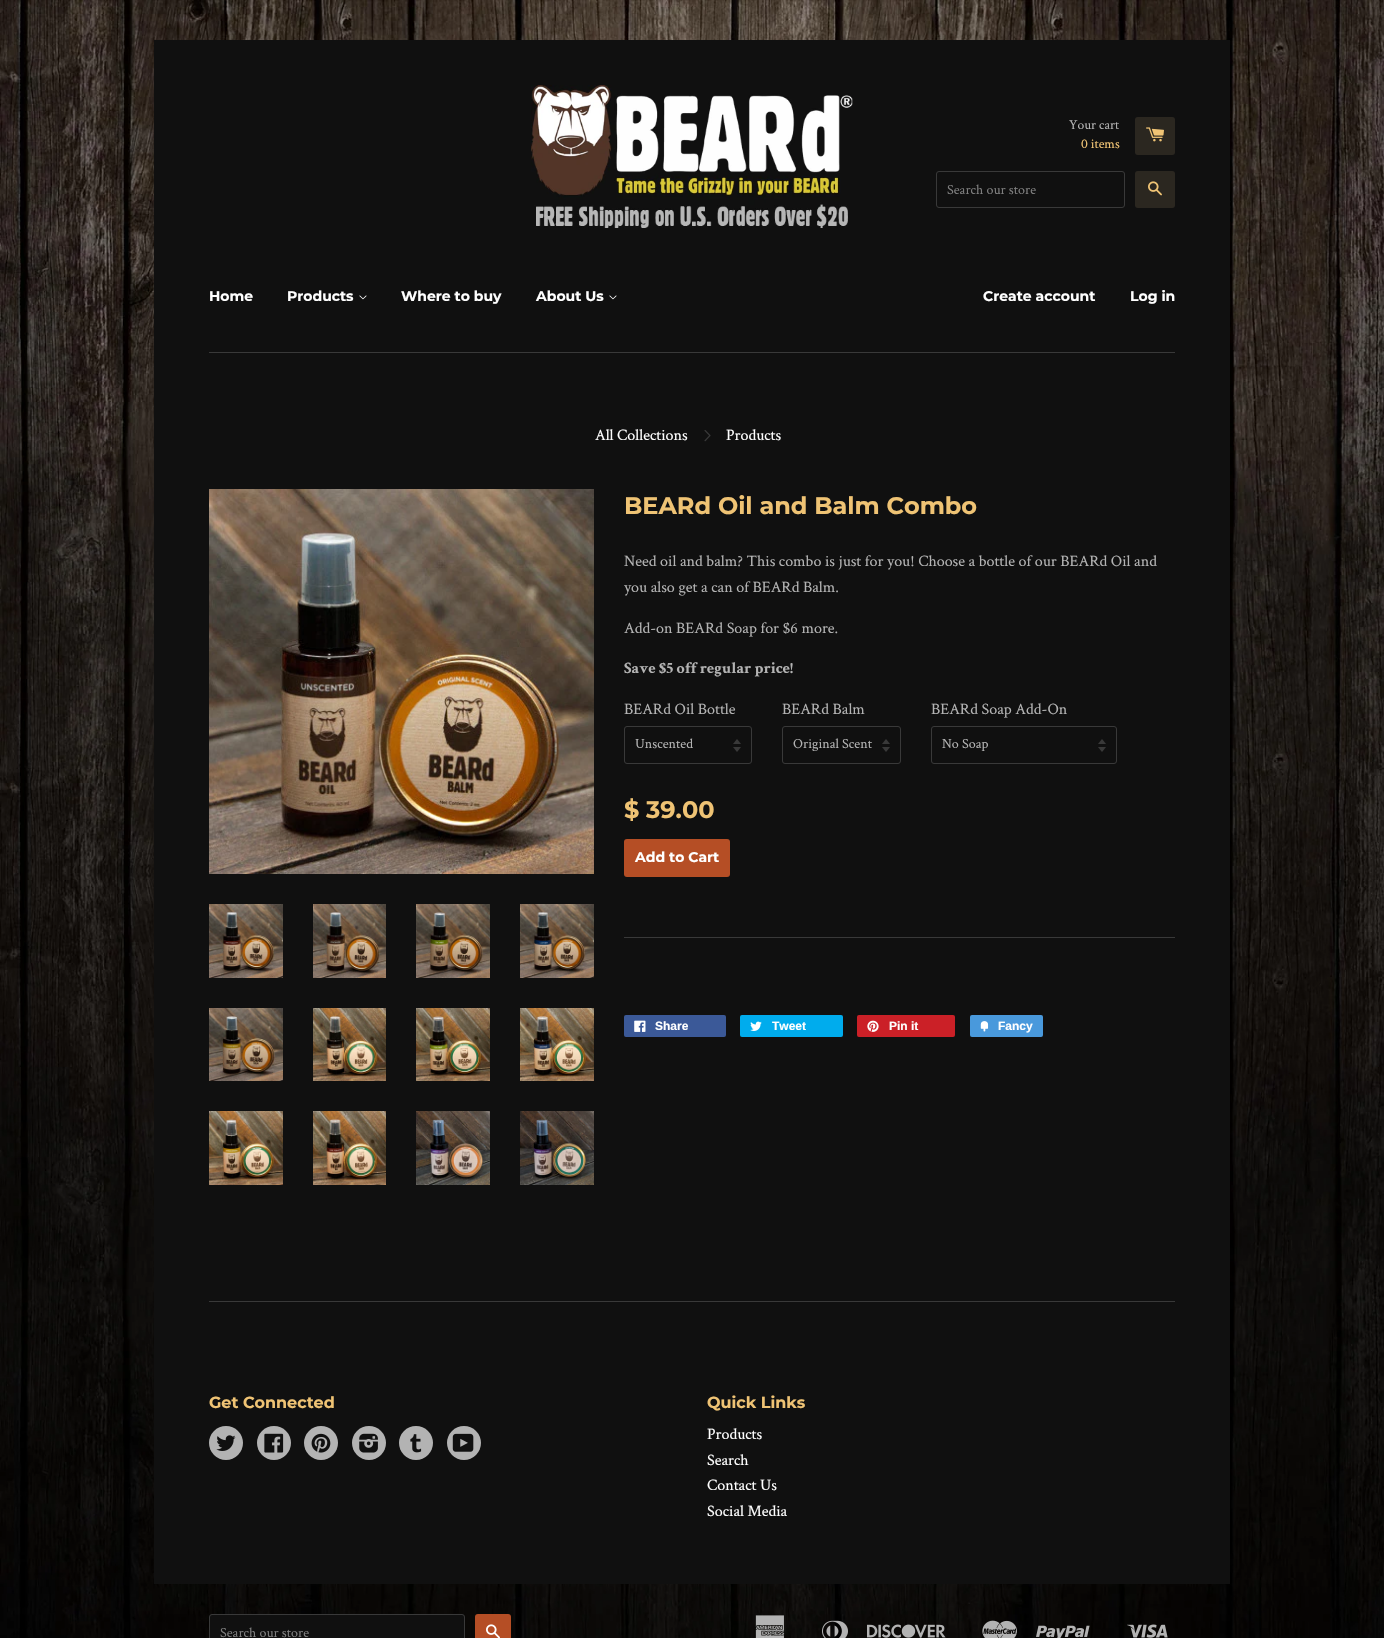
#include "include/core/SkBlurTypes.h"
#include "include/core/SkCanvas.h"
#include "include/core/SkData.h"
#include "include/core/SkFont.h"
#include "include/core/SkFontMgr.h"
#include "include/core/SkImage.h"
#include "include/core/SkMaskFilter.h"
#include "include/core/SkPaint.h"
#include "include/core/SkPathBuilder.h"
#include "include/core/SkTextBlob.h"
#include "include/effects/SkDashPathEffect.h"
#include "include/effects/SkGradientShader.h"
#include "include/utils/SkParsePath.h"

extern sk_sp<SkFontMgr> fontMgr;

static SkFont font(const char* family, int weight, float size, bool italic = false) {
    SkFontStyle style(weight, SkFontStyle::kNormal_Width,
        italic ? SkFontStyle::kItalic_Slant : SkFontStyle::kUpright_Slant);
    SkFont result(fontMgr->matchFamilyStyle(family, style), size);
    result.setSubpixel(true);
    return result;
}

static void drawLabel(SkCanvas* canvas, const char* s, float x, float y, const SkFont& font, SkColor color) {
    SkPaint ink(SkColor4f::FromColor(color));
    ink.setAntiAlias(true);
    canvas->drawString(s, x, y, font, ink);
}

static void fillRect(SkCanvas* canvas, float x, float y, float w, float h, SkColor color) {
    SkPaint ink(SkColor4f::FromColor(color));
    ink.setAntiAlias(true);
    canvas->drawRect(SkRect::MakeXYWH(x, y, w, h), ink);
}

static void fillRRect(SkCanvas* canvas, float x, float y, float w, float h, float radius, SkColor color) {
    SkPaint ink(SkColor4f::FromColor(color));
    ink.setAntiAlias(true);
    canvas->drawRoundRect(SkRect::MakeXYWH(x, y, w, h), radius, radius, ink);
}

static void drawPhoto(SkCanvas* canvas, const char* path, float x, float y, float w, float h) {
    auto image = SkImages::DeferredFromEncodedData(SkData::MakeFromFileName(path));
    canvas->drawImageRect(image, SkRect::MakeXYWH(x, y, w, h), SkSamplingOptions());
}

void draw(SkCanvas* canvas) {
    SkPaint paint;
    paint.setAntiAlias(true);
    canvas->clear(0xFFFFFFFF);
    drawPhoto(canvas, "assets/img1.png", 0, 0, 1384, 1638);
    fillRect(canvas, 154, 40, 1076, 1544, 0xFF101010);
    drawPhoto(canvas, "assets/img2.png", 531, 85, 322, 143);
    SkFont font1 = font("Crimson Text", 400, 13.5f);
    drawLabel(canvas, "Your cart", 1069, 129, font1, 0xFFB3B3B3);
    drawLabel(canvas, "0 items", 1081, 148, font1, 0xFFEFC374);
    fillRRect(canvas, 1135, 117, 40, 38, 3, 0xFF2B2720);
    drawPhoto(canvas, "assets/img3.png", 1146, 127, 18, 15);
    paint.setStroke(true);
    paint.setStrokeWidth(1);
    paint.setColor(0xFF393939);
    canvas->drawRoundRect(SkRect::MakeXYWH(936.5f, 171.5f, 188, 36), 2.5f, 2.5f, paint);
    SkFont font2 = font("Crimson Text", 400, 14);
    drawLabel(canvas, "Search our store", 947, 194, font2, 0xFF7F7F7F);
    fillRRect(canvas, 1135, 171, 40, 37, 3, 0xFF2B2720);
    drawPhoto(canvas, "assets/img4.png", 1148, 181, 14, 15);
    SkFont font3 = font("Montserrat", 100, 14);
    drawLabel(canvas, "Home", 209, 301, font3, 0xFFFFFFFF);
    drawLabel(canvas, "Products", 287, 301, font3, 0xFFFFFFFF);
    drawPhoto(canvas, "assets/img5.png", 359, 295, 8, 5);
    drawLabel(canvas, "Where to buy", 401, 301, font3, 0xFFFFFFFF);
    drawLabel(canvas, "About Us", 536, 301, font3, 0xFFFFFFFF);
    drawPhoto(canvas, "assets/img5.png", 609, 295, 8, 5);
    drawLabel(canvas, "Create account", 983, 301, font3, 0xFFFFFFFF);
    drawLabel(canvas, "Log in", 1130, 301, font3, 0xFFFFFFFF);
    fillRect(canvas, 209, 352, 966, 1, 0xFF393939);
    SkFont font4 = font("Crimson Text", 400, 16);
    drawLabel(canvas, "All Collections", 595, 440, font4, 0xFFFFFFFF);
    drawPhoto(canvas, "assets/img6.png", 704, 430, 7, 12);
    drawLabel(canvas, "Products", 726, 440, font4, 0xFFFFFFFF);
    drawPhoto(canvas, "assets/img7.png", 209, 489, 385, 385);
    drawPhoto(canvas, "assets/img8.png", 209, 904, 74, 74);
    drawPhoto(canvas, "assets/img9.png", 313, 904, 73, 74);
    drawPhoto(canvas, "assets/img10.png", 416, 904, 74, 74);
    drawPhoto(canvas, "assets/img11.png", 520, 904, 74, 74);
    drawPhoto(canvas, "assets/img12.png", 209, 1008, 74, 73);
    drawPhoto(canvas, "assets/img13.png", 313, 1008, 73, 73);
    drawPhoto(canvas, "assets/img14.png", 416, 1008, 74, 73);
    drawPhoto(canvas, "assets/img15.png", 520, 1008, 74, 73);
    drawPhoto(canvas, "assets/img16.png", 209, 1111, 74, 74);
    drawPhoto(canvas, "assets/img17.png", 313, 1111, 73, 74);
    drawPhoto(canvas, "assets/img18.png", 416, 1111, 74, 74);
    drawPhoto(canvas, "assets/img19.png", 520, 1111, 74, 74);
    SkFont font5 = font("Montserrat", 100, 24);
    drawLabel(canvas, "BEARd Oil and Balm Combo", 624, 514, font5, 0xFFEFC374);
    drawLabel(canvas, "Need oil and balm? This combo is just for you! Choose a bottle of our BEARd Oil and", 624, 566, font4, 0xFFB3B3B3);
    drawLabel(canvas, "you also get a can of BEARd Balm.", 624, 592, font4, 0xFFB3B3B3);
    drawLabel(canvas, "Add-on BEARd Soap for $6 more.", 624, 633, font4, 0xFFB3B3B3);
    SkFont font6 = font("Crimson Text", 700, 16);
    drawLabel(canvas, "Save $5 off regular price!", 624, 673, font6, 0xFFB3B3B3);
    drawLabel(canvas, "BEARd Oil Bottle", 624, 714, font4, 0xFFB3B3B3);
    drawPhoto(canvas, "assets/img20.png", 733, 739, 8, 13);
    canvas->drawRoundRect(SkRect::MakeXYWH(624.5f, 726.5f, 127, 37), 2.5f, 2.5f, paint);
    drawLabel(canvas, "Unscented", 635, 748, font2, 0xFFB3B3B3);
    drawLabel(canvas, "BEARd Balm", 782, 714, font4, 0xFFB3B3B3);
    drawPhoto(canvas, "assets/img20.png", 882, 739, 8, 13);
    canvas->drawRoundRect(SkRect::MakeXYWH(782.5f, 726.5f, 118, 37), 2.5f, 2.5f, paint);
    drawLabel(canvas, "Original Scent", 793, 748, font2, 0xFFB3B3B3);
    drawLabel(canvas, "BEARd Soap Add-On", 931, 714, font4, 0xFFB3B3B3);
    drawPhoto(canvas, "assets/img20.png", 1098, 739, 8, 13);
    canvas->drawRoundRect(SkRect::MakeXYWH(931.5f, 726.5f, 185, 37), 2.5f, 2.5f, paint);
    drawLabel(canvas, "No Soap", 942, 748, font2, 0xFFB3B3B3);
    drawLabel(canvas, "$ 39.00", 624, 818, font5, 0xFFEFC374);
    fillRRect(canvas, 624, 839, 106, 38, 3, 0xFFB54E25);
    drawLabel(canvas, "Add to Cart", 635, 862, font3, 0xFFFFFFFF);
    fillRect(canvas, 624, 937, 551, 1, 0xFF393939);
    fillRRect(canvas, 624, 1015, 102, 22, 2, 0xFF3B5998);
    drawPhoto(canvas, "assets/img21.png", 634, 1020, 12, 12);
    SkFont font7 = font("Liberation Sans", 700, 12);
    drawLabel(canvas, "Share", 655, 1030, font7, 0xFFFFFFFF);
    fillRRect(canvas, 740, 1015, 103, 22, 2, 0xFF00ACED);
    drawPhoto(canvas, "assets/img22.png", 750, 1021, 12, 10);
    drawLabel(canvas, "Tweet", 772, 1030, font7, 0xFFFFFFFF);
    fillRRect(canvas, 857, 1015, 98, 22, 2, 0xFFCB2027);
    drawPhoto(canvas, "assets/img23.png", 867, 1020, 12, 12);
    drawLabel(canvas, "Pin it", 889, 1030, font7, 0xFFFFFFFF);
    fillRRect(canvas, 970, 1015, 73, 22, 2, 0xFF4999DC);
    drawPhoto(canvas, "assets/img24.png", 980, 1021, 9, 11);
    drawLabel(canvas, "Fancy", 998, 1030, font7, 0xFFFFFFFF);
    fillRect(canvas, 209, 1301, 966, 1, 0xFF393939);
    SkFont font8 = font("Montserrat", 100, 16);
    drawLabel(canvas, "Get Connected", 209, 1408, font8, 0xFFEFC374);
    paint.setStroke(false);
    paint.setColor(0xFFB3B3B3);
    canvas->drawCircle(226, 1443, 17, paint);
    drawPhoto(canvas, "assets/img25.png", 216, 1435, 20, 16);
    canvas->drawCircle(274, 1443, 17, paint);
    drawPhoto(canvas, "assets/img26.png", 264, 1433, 20, 20);
    canvas->drawCircle(321, 1443, 17, paint);
    drawPhoto(canvas, "assets/img27.png", 311, 1433, 20, 20);
    canvas->drawCircle(369, 1443, 17, paint);
    drawPhoto(canvas, "assets/img28.png", 359, 1433, 19, 20);
    canvas->drawCircle(416, 1443, 17, paint);
    drawPhoto(canvas, "assets/img29.png", 410, 1434, 12, 19);
    canvas->drawCircle(464, 1443, 17, paint);
    drawPhoto(canvas, "assets/img30.png", 452, 1433, 22, 19);
    drawLabel(canvas, "Quick Links", 707, 1408, font8, 0xFFEFC374);
    drawLabel(canvas, "Products", 707, 1439, font4, 0xFFFFFFFF);
    drawLabel(canvas, "Search", 707, 1465, font4, 0xFFFFFFFF);
    drawLabel(canvas, "Contact Us", 707, 1490, font4, 0xFFFFFFFF);
    drawLabel(canvas, "Social Media", 707, 1516, font4, 0xFFFFFFFF);
    paint.setColor(0xFF101010);
    canvas->drawRoundRect(SkRect::MakeXYWH(209.5f, 1614.5f, 255, 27), 2.5f, 2.5f, paint);
    paint.setStroke(true);
    paint.setColor(0xFF393939);
    canvas->drawRoundRect(SkRect::MakeXYWH(209.5f, 1614.5f, 255, 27), 2.5f, 2.5f, paint);
    drawLabel(canvas, "Search our store", 220, 1637, font2, 0xFF7F7F7F);
    fillRRect(canvas, 475, 1614, 36, 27, 3, 0xFFB54E25);
    drawPhoto(canvas, "assets/img31.png", 486, 1624, 14, 14);
    drawPhoto(canvas, "assets/img32.png", 755, 1615, 30, 23);
    drawPhoto(canvas, "assets/img33.png", 822, 1620, 26, 18);
    drawPhoto(canvas, "assets/img34.png", 867, 1624, 79, 14);
    drawPhoto(canvas, "assets/img35.png", 982, 1620, 35, 18);
    drawPhoto(canvas, "assets/img36.png", 1036, 1625, 54, 13);
    drawPhoto(canvas, "assets/img37.png", 1127, 1624, 41, 14);
}
